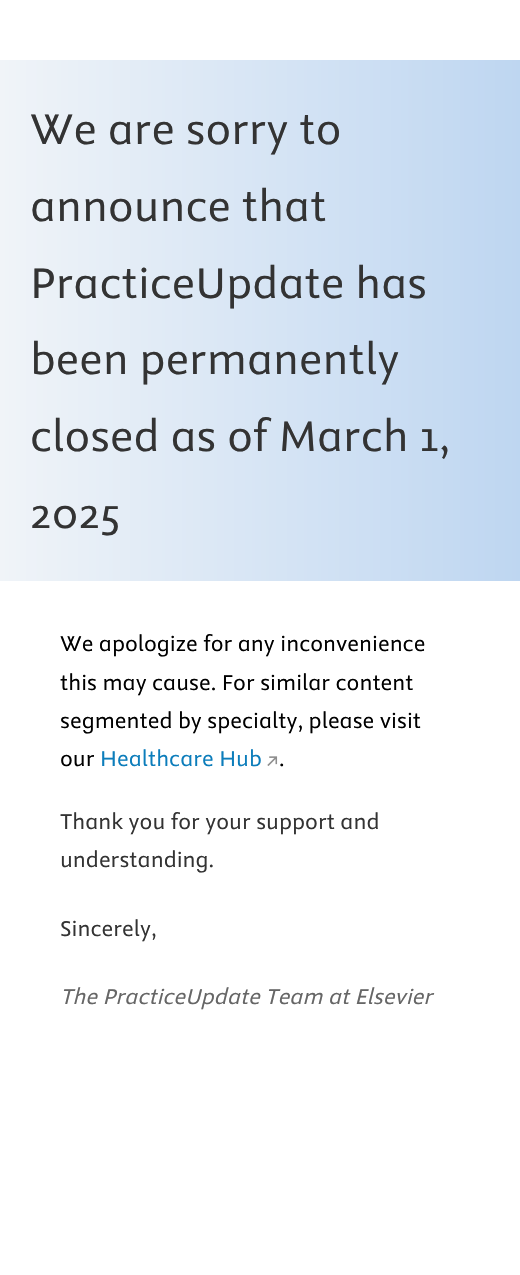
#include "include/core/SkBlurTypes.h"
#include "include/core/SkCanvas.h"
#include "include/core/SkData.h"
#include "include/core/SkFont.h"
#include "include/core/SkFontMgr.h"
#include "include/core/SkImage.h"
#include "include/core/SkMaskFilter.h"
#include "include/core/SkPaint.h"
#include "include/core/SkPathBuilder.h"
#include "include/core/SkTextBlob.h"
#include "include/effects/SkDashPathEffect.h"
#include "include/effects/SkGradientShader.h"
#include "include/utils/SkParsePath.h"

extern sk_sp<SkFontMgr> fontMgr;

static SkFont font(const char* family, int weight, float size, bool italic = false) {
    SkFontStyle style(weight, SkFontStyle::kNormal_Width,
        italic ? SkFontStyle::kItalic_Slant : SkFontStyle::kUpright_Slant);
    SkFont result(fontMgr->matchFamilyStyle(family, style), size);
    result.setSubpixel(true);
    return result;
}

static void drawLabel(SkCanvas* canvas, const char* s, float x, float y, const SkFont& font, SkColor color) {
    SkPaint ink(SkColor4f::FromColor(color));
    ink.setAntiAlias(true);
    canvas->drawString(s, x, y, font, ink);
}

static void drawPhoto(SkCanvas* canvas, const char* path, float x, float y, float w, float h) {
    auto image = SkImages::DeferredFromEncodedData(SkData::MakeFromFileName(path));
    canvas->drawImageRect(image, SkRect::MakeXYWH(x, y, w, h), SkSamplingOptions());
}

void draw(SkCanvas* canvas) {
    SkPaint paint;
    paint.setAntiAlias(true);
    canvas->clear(0xFFFFFFFF);
    {
        const SkColor colors[] = {0xFFF0F4F8, 0xFFBED6F1};
        const float stops[] = {0, 1};
        const SkPoint ends[] = {{0, 320}, {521, 320}};
        paint.setShader(SkGradientShader::MakeLinear(ends, colors, stops, 2, SkTileMode::kClamp));
        paint.setAlpha(255);
    }
    canvas->drawRect(SkRect::MakeXYWH(0, 60, 520, 521), paint);
    SkFont font1 = font("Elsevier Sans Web", 400, 48);
    drawLabel(canvas, "We are sorry to", 30, 144, font1, 0xFF333333);
    drawLabel(canvas, "announce that", 30, 221, font1, 0xFF333333);
    drawLabel(canvas, "PracticeUpdate has", 30, 298, font1, 0xFF333333);
    drawLabel(canvas, "been permanently", 30, 374, font1, 0xFF333333);
    drawLabel(canvas, "closed as of March 1,", 30, 451, font1, 0xFF333333);
    drawLabel(canvas, "2025", 30, 528, font1, 0xFF333333);
    SkFont font2 = font("Elsevier Sans Web", 400, 24);
    drawLabel(canvas, "We apologize for any inconvenience", 60, 651, font2, 0xFF000000);
    drawLabel(canvas, "this may cause. For similar content", 60, 690, font2, 0xFF000000);
    drawLabel(canvas, "segmented by specialty, please visit", 60, 728, font2, 0xFF000000);
    drawLabel(canvas, "our", 60, 766, font2, 0xFF000000);
    drawLabel(canvas, "Healthcare Hub", 100, 766, font2, 0xFF0C7DBB);
    drawPhoto(canvas, "assets/img1.png", 267, 756, 11, 10);
    drawLabel(canvas, ".", 279, 766, font2, 0xFF000000);
    drawLabel(canvas, "Thank you for your support and", 60, 829, font2, 0xFF333333);
    drawLabel(canvas, "understanding.", 60, 867, font2, 0xFF333333);
    drawLabel(canvas, "Sincerely,", 60, 936, font2, 0xFF333333);
    SkFont font3 = font("Elsevier Sans Web", 400, 24, true);
    drawLabel(canvas, "The PracticeUpdate Team at Elsevier", 60, 1004, font3, 0xFF666666);
}
